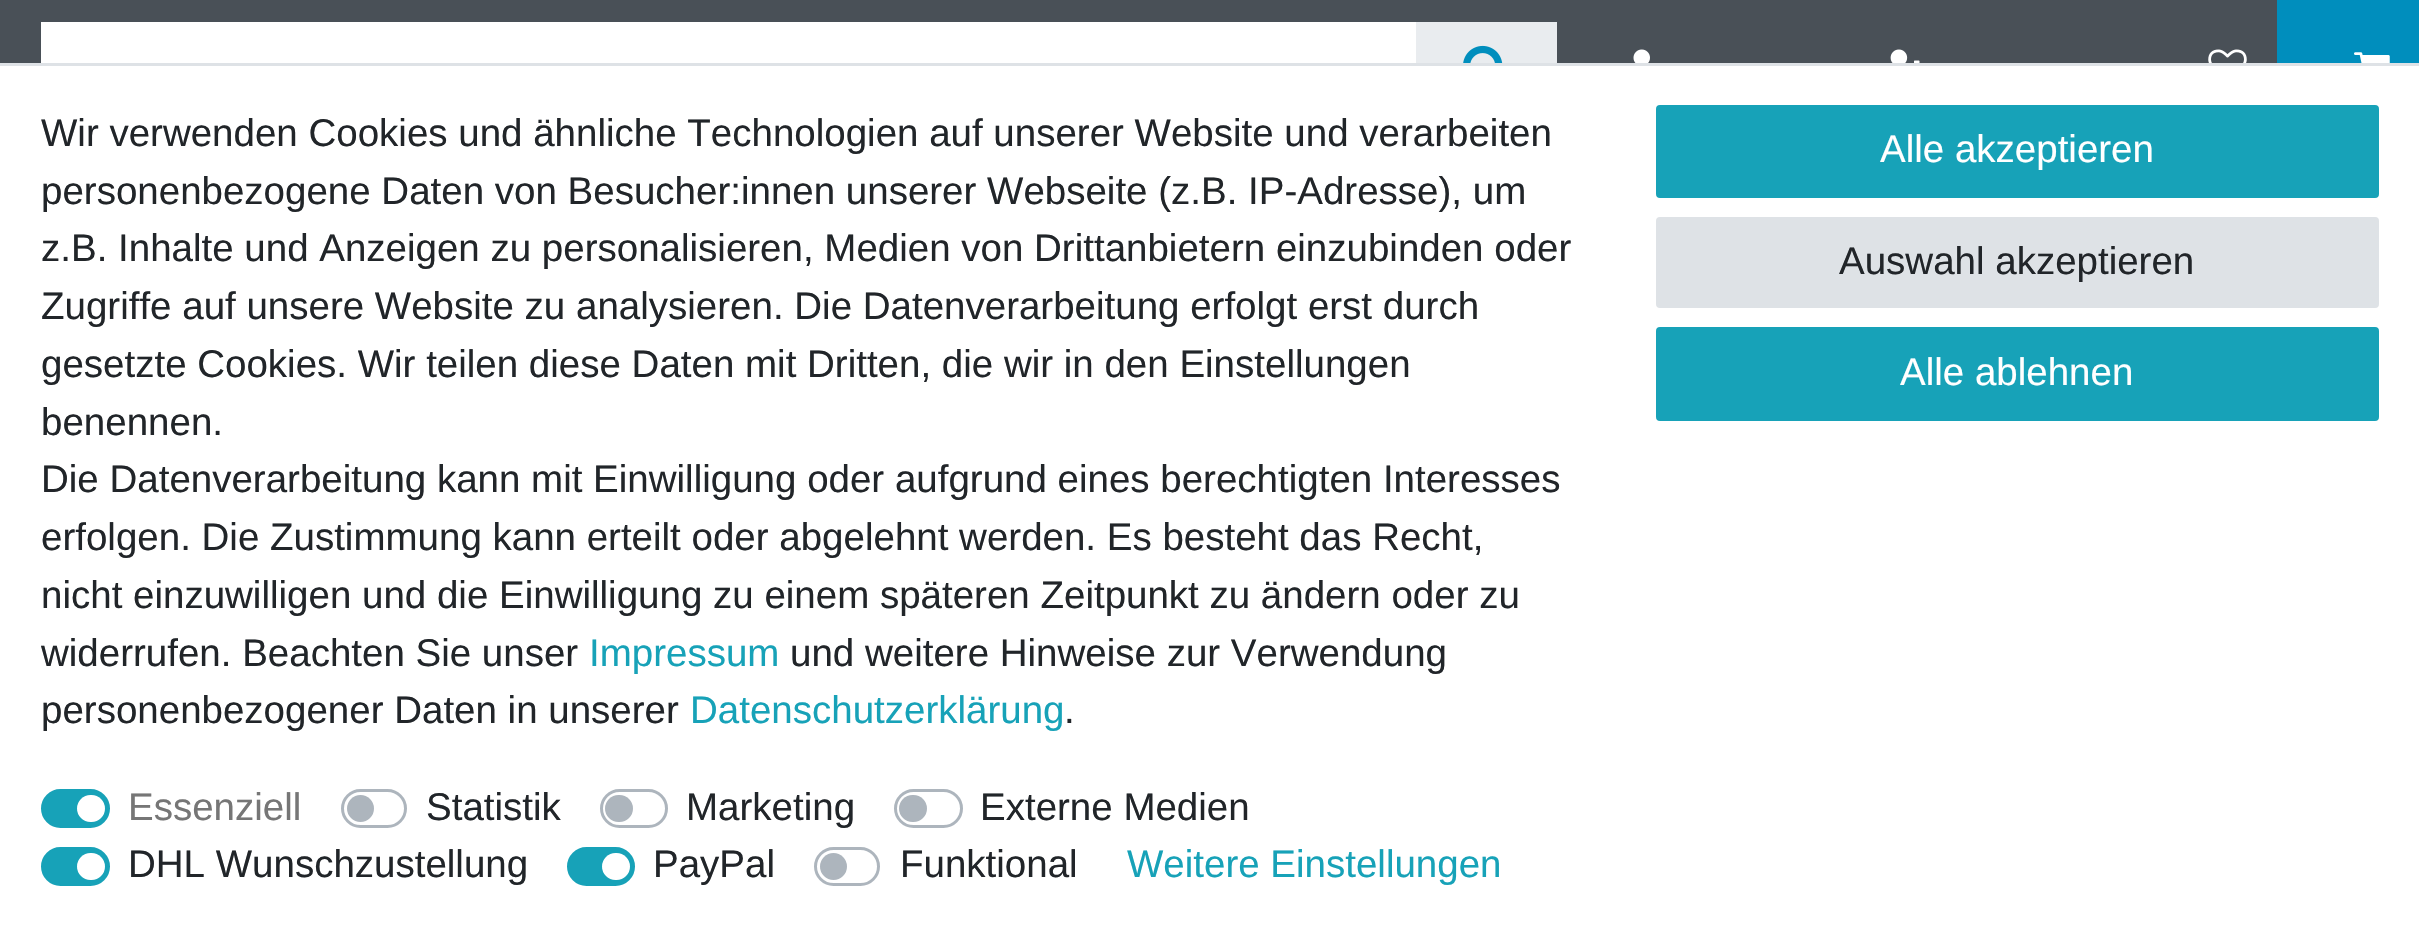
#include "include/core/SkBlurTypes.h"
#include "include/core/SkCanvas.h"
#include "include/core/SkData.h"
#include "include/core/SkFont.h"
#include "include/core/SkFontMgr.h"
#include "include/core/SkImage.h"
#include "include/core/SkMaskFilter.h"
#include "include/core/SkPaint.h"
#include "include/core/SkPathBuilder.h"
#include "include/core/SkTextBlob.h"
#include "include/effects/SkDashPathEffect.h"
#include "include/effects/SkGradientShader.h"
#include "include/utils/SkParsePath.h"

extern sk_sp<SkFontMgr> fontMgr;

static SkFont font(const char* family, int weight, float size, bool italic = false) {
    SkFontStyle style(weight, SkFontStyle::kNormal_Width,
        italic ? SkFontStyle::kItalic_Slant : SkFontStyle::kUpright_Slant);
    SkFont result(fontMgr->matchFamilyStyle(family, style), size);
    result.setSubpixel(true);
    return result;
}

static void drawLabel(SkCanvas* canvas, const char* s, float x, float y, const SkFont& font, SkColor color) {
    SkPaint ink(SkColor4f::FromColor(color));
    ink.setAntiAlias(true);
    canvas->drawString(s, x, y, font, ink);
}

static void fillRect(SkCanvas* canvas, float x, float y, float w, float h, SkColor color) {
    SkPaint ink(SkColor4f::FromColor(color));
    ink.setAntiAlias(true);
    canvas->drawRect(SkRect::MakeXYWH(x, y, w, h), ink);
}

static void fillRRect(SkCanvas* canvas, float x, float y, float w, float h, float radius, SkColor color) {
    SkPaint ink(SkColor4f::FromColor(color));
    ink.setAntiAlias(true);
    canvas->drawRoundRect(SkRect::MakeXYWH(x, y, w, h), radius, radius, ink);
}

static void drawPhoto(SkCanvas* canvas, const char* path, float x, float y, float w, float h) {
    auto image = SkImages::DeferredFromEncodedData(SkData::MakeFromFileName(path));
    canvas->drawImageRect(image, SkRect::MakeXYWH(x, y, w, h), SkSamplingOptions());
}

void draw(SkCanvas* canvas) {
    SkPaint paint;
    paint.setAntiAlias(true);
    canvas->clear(0xFF495057);
    fillRect(canvas, 41, 22, 1375, 41, 0xFFFFFFFF);
    fillRect(canvas, 1416, 22, 141, 41, 0xFFE9ECEF);
    drawPhoto(canvas, "assets/img1.png", 1463, 45, 40, 18);
    drawPhoto(canvas, "assets/img2.png", 1633, 49, 17, 14);
    drawPhoto(canvas, "assets/img3.png", 1890, 49, 30, 14);
    drawPhoto(canvas, "assets/img4.png", 2208, 49, 39, 14);
    fillRect(canvas, 2277, 0, 142, 63, 0xFF008EBD);
    drawPhoto(canvas, "assets/img5.png", 2354, 52, 36, 11);
    fillRect(canvas, 0, 66, 2419, 865, 0xFFFFFFFF);
    fillRect(canvas, 0, 63, 2419, 3, 0xFFDEE2E6);
    SkFont font1 = font("Liberation Sans", 400, 38.5f);
    drawLabel(canvas, "Wir verwenden Cookies und ähnliche Technologien auf unserer Website und verarbeiten", 41, 146, font1, 0xFF212529);
    drawLabel(canvas, "personenbezogene Daten von Besucher:innen unserer Webseite (z.B. IP-Adresse), um", 41, 204, font1, 0xFF212529);
    drawLabel(canvas, "z.B. Inhalte und Anzeigen zu personalisieren, Medien von Drittanbietern einzubinden oder", 41, 261, font1, 0xFF212529);
    drawLabel(canvas, "Zugriffe auf unsere Website zu analysieren. Die Datenverarbeitung erfolgt erst durch", 41, 319, font1, 0xFF212529);
    drawLabel(canvas, "gesetzte Cookies. Wir teilen diese Daten mit Dritten, die wir in den Einstellungen", 41, 377, font1, 0xFF212529);
    drawLabel(canvas, "benennen.", 41, 435, font1, 0xFF212529);
    drawLabel(canvas, "Die Datenverarbeitung kann mit Einwilligung oder aufgrund eines berechtigten Interesses", 41, 492, font1, 0xFF212529);
    drawLabel(canvas, "erfolgen. Die Zustimmung kann erteilt oder abgelehnt werden. Es besteht das Recht,", 41, 550, font1, 0xFF212529);
    drawLabel(canvas, "nicht einzuwilligen und die Einwilligung zu einem späteren Zeitpunkt zu ändern oder zu", 41, 608, font1, 0xFF212529);
    drawLabel(canvas, "widerrufen. Beachten Sie unser", 41, 666, font1, 0xFF212529);
    drawLabel(canvas, "Impressum", 589, 666, font1, 0xFF17A2B8);
    drawLabel(canvas, "und weitere Hinweise zur Verwendung", 790, 666, font1, 0xFF212529);
    drawLabel(canvas, "personenbezogener Daten in unserer", 41, 723, font1, 0xFF212529);
    drawLabel(canvas, "Datenschutzerklärung", 690, 723, font1, 0xFF17A2B8);
    drawLabel(canvas, ".", 1064, 723, font1, 0xFF212529);
    paint.setColor(0xFF17A2B8);
    canvas->drawRoundRect(SkRect::MakeXYWH(42.5f, 790.5f, 66, 36), 18, 18, paint);
    paint.setStroke(true);
    paint.setStrokeWidth(3);
    canvas->drawRoundRect(SkRect::MakeXYWH(42.5f, 790.5f, 66, 36), 18, 18, paint);
    drawLabel(canvas, "Essenziell", 128, 820, font1, 0xFF767676);
    fillRRect(canvas, 77, 795, 28, 27, 13.5f, 0xFFFFFFFF);
    paint.setColor(0xFFADB5BD);
    canvas->drawRoundRect(SkRect::MakeXYWH(342.5f, 790.5f, 63, 36), 18, 18, paint);
    drawLabel(canvas, "Statistik", 426, 820, font1, 0xFF212529);
    paint.setStroke(false);
    canvas->drawCircle(360.5f, 808.5f, 13.5f, paint);
    paint.setStroke(true);
    canvas->drawRoundRect(SkRect::MakeXYWH(601.5f, 790.5f, 65, 36), 18, 18, paint);
    drawLabel(canvas, "Marketing", 686, 820, font1, 0xFF212529);
    fillRRect(canvas, 605, 795, 28, 27, 13.5f, 0xFFADB5BD);
    canvas->drawRoundRect(SkRect::MakeXYWH(895.5f, 790.5f, 66, 36), 18, 18, paint);
    drawLabel(canvas, "Externe Medien", 980, 820, font1, 0xFF212529);
    fillRRect(canvas, 899, 795, 28, 27, 13.5f, 0xFFADB5BD);
    paint.setStroke(false);
    paint.setColor(0xFF17A2B8);
    canvas->drawRoundRect(SkRect::MakeXYWH(42.5f, 848.5f, 66, 36), 18, 18, paint);
    paint.setStroke(true);
    canvas->drawRoundRect(SkRect::MakeXYWH(42.5f, 848.5f, 66, 36), 18, 18, paint);
    drawLabel(canvas, "DHL Wunschzustellung", 128, 877, font1, 0xFF212529);
    fillRRect(canvas, 77, 853, 28, 27, 13.5f, 0xFFFFFFFF);
    paint.setStroke(false);
    canvas->drawRoundRect(SkRect::MakeXYWH(568.5f, 848.5f, 65, 36), 18, 18, paint);
    paint.setStroke(true);
    canvas->drawRoundRect(SkRect::MakeXYWH(568.5f, 848.5f, 65, 36), 18, 18, paint);
    drawLabel(canvas, "PayPal", 653, 877, font1, 0xFF212529);
    fillRRect(canvas, 602, 853, 28, 27, 13.5f, 0xFFFFFFFF);
    paint.setColor(0xFFADB5BD);
    canvas->drawRoundRect(SkRect::MakeXYWH(815.5f, 848.5f, 63, 36), 18, 18, paint);
    drawLabel(canvas, "Funktional", 900, 877, font1, 0xFF212529);
    paint.setStroke(false);
    canvas->drawCircle(833.5f, 866.5f, 13.5f, paint);
    drawLabel(canvas, "Weitere Einstellungen", 1127, 877, font1, 0xFF17A2B8);
    paint.setColor(0xFF17A2B8);
    canvas->drawRoundRect(SkRect::MakeXYWH(1657.5f, 106.5f, 720, 90), 2.5f, 2.5f, paint);
    paint.setStroke(true);
    canvas->drawRoundRect(SkRect::MakeXYWH(1657.5f, 106.5f, 720, 90), 2.5f, 2.5f, paint);
    drawLabel(canvas, "Alle akzeptieren", 1880, 162, font1, 0xFFFFFFFF);
    paint.setStroke(false);
    paint.setColor(0xFFDEE2E6);
    canvas->drawRoundRect(SkRect::MakeXYWH(1657.5f, 218.5f, 720, 88), 2.5f, 2.5f, paint);
    paint.setStroke(true);
    canvas->drawRoundRect(SkRect::MakeXYWH(1657.5f, 218.5f, 720, 88), 2.5f, 2.5f, paint);
    drawLabel(canvas, "Auswahl akzeptieren", 1839, 274, font1, 0xFF212529);
    paint.setStroke(false);
    paint.setColor(0xFF17A2B8);
    canvas->drawRoundRect(SkRect::MakeXYWH(1657.5f, 328.5f, 720, 91), 2.5f, 2.5f, paint);
    paint.setStroke(true);
    canvas->drawRoundRect(SkRect::MakeXYWH(1657.5f, 328.5f, 720, 91), 2.5f, 2.5f, paint);
    drawLabel(canvas, "Alle ablehnen", 1900, 385, font1, 0xFFFFFFFF);
}
